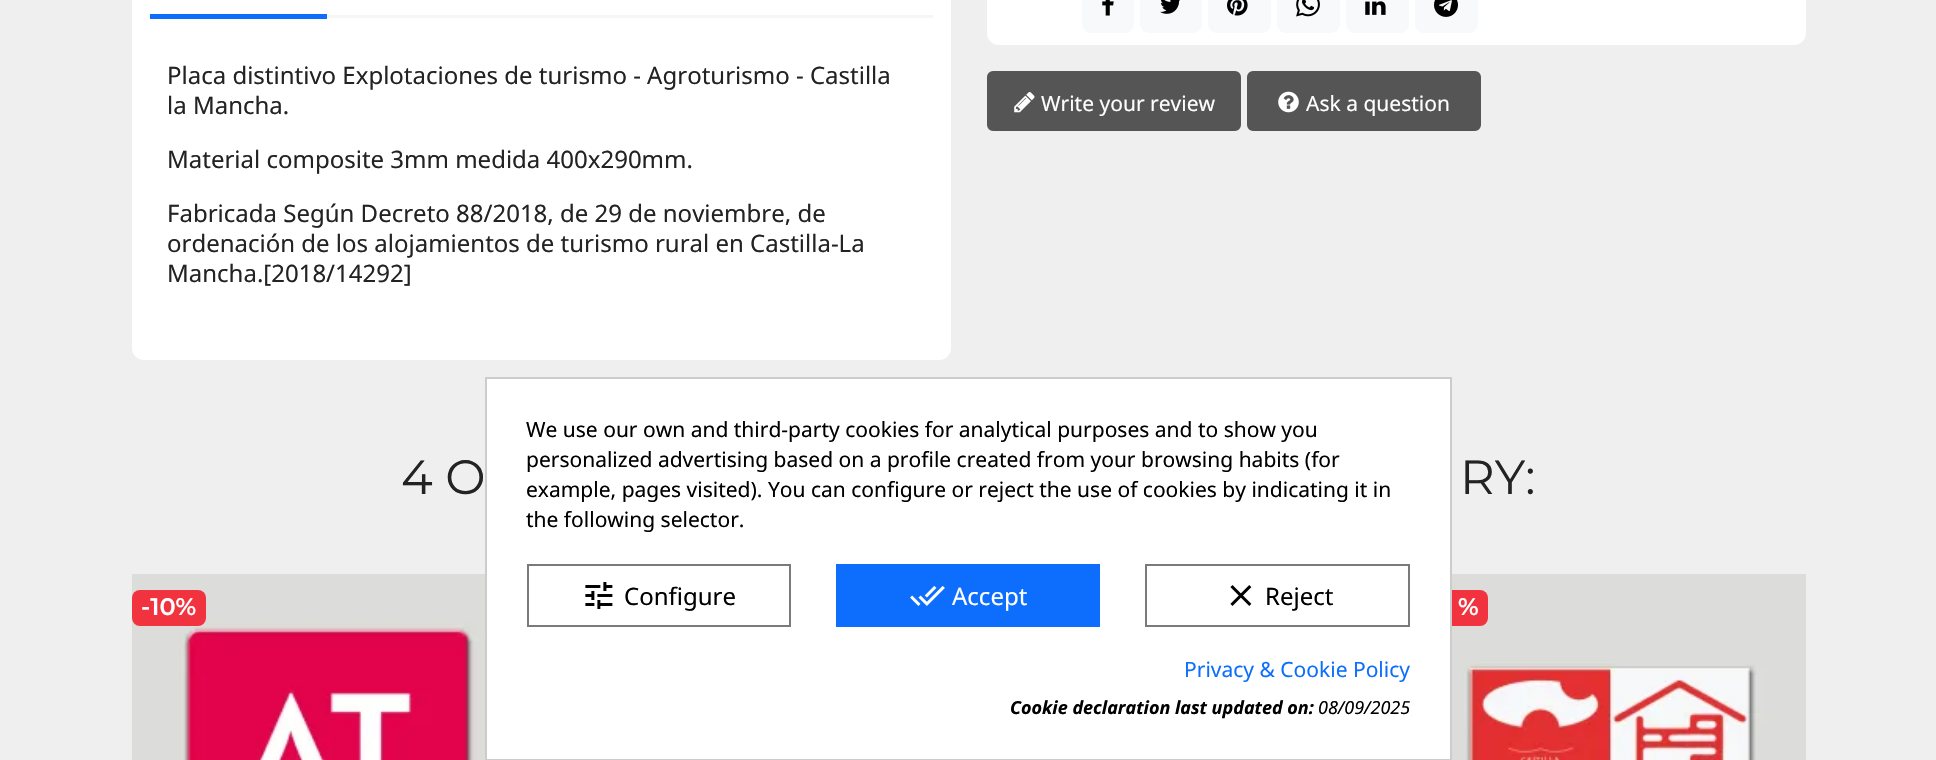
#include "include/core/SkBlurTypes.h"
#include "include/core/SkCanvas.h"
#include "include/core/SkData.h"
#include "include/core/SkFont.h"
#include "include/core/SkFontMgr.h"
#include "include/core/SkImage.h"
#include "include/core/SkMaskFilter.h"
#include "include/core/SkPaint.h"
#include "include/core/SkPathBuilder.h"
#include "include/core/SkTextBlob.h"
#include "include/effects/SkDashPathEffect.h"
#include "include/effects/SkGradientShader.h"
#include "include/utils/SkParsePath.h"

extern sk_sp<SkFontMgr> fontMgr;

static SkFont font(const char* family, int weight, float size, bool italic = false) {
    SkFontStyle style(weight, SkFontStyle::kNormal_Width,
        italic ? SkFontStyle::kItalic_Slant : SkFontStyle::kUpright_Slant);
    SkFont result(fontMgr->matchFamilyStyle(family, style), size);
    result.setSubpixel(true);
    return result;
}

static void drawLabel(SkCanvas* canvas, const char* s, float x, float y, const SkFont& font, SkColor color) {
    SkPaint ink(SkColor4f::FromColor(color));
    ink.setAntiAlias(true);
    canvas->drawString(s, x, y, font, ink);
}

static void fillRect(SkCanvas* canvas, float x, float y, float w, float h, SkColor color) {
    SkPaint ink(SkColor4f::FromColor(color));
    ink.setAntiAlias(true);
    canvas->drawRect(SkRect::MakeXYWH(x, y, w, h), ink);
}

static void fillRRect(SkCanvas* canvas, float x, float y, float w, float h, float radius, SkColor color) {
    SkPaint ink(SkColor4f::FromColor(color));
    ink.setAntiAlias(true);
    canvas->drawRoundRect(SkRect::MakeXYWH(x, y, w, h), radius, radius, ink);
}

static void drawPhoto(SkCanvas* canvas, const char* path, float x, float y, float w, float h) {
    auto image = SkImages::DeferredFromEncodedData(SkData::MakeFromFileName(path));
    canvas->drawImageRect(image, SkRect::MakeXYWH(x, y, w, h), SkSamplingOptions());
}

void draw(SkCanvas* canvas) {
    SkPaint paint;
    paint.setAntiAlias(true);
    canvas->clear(0xFFEFEFEF);
    fillRRect(canvas, 132, -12, 819, 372, 12, 0xFFFFFFFF);
    fillRect(canvas, 327, 15, 606, 3, 0xFFF6F6F6);
    fillRect(canvas, 150, 14, 177, 5, 0xFF0D6EFD);
    SkFont font1 = font("Noto Sans", 400, 24);
    drawLabel(canvas, "Placa distintivo Explotaciones de turismo - Agroturismo - Castilla", 167, 84, font1, 0xFF232323);
    drawLabel(canvas, "la Mancha.", 167, 114, font1, 0xFF232323);
    drawLabel(canvas, "Material composite 3mm medida 400x290mm.", 167, 168, font1, 0xFF232323);
    drawLabel(canvas, "Fabricada Según Decreto 88/2018, de 29 de noviembre, de", 167, 222, font1, 0xFF232323);
    drawLabel(canvas, "ordenación de los alojamientos de turismo rural en Castilla-La", 167, 252, font1, 0xFF232323);
    drawLabel(canvas, "Mancha.[2018/14292]", 167, 282, font1, 0xFF232323);
    fillRRect(canvas, 987, -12, 819, 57, 12, 0xFFFFFFFF);
    fillRRect(canvas, 1082, -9, 52, 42, 9, 0xFFF8F9FA);
    drawPhoto(canvas, "assets/img1.png", 1102, 0, 12, 16);
    fillRRect(canvas, 1140, -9, 62, 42, 9, 0xFFF8F9FA);
    drawPhoto(canvas, "assets/img2.png", 1160, 0, 20, 14);
    fillRRect(canvas, 1208, -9, 63, 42, 9, 0xFFF8F9FA);
    drawPhoto(canvas, "assets/img3.png", 1227, 0, 21, 16);
    fillRRect(canvas, 1277, -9, 63, 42, 9, 0xFFF8F9FA);
    drawPhoto(canvas, "assets/img4.png", 1296, 0, 24, 17);
    fillRRect(canvas, 1346, -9, 63, 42, 9, 0xFFF8F9FA);
    drawPhoto(canvas, "assets/img5.png", 1365, 1, 21, 14);
    fillRRect(canvas, 1415, -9, 63, 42, 9, 0xFFF8F9FA);
    drawPhoto(canvas, "assets/img6.png", 1434, 0, 24, 17);
    paint.setColor(0xFF555555);
    canvas->drawRoundRect(SkRect::MakeXYWH(988, 72, 252, 58), 5, 5, paint);
    paint.setStroke(true);
    paint.setStrokeWidth(2);
    canvas->drawRoundRect(SkRect::MakeXYWH(988, 72, 252, 58), 5, 5, paint);
    drawPhoto(canvas, "assets/img7.png", 1014, 92, 21, 21);
    SkFont font2 = font("Noto Sans", 400, 21);
    drawLabel(canvas, "Write your review", 1041, 111, font2, 0xFFFFFFFF);
    paint.setStroke(false);
    canvas->drawRoundRect(SkRect::MakeXYWH(1248, 72, 232, 58), 5, 5, paint);
    paint.setStroke(true);
    canvas->drawRoundRect(SkRect::MakeXYWH(1248, 72, 232, 58), 5, 5, paint);
    drawPhoto(canvas, "assets/img8.png", 1278, 91, 21, 22);
    drawLabel(canvas, "Ask a question", 1306, 111, font2, 0xFFFFFFFF);
    SkFont font3 = font("Montserrat", 400, 48);
    drawLabel(canvas, "4 O", 401, 494, font3, 0xFF232323);
    drawLabel(canvas, "RY:", 1460, 494, font3, 0xFF232323);
    drawPhoto(canvas, "assets/img9.png", 132, 574, 353, 186);
    fillRRect(canvas, 132, 590, 74, 36, 8, 0xFFF13340);
    SkFont font4 = font("Montserrat", 600, 24);
    drawLabel(canvas, "-10%", 141, 615, font4, 0xFFFFFFFF);
    drawPhoto(canvas, "assets/img10.png", 1452, 574, 354, 186);
    fillRRect(canvas, 1415, 590, 73, 36, 8, 0xFFF13340);
    drawLabel(canvas, "%", 1458, 615, font4, 0xFFFFFFFF);
    paint.setStroke(false);
    paint.setColor(0xFFFFFFFF);
    canvas->drawRect(SkRect::MakeXYWH(486, 378, 965, 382), paint);
    paint.setStroke(true);
    paint.setColor(0xFFCCCCCC);
    canvas->drawRect(SkRect::MakeXYWH(486, 378, 965, 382), paint);
    drawLabel(canvas, "We use our own and third-party cookies for analytical purposes and to show you", 526, 437, font2, 0xFF000000);
    drawLabel(canvas, "personalized advertising based on a profile created from your browsing habits (for", 526, 467, font2, 0xFF000000);
    drawLabel(canvas, "example, pages visited). You can configure or reject the use of cookies by indicating it in", 526, 497, font2, 0xFF000000);
    drawLabel(canvas, "the following selector.", 526, 527, font2, 0xFF000000);
    paint.setColor(0xFF7A7A7A);
    canvas->drawRect(SkRect::MakeXYWH(528, 565, 262, 61), paint);
    drawPhoto(canvas, "assets/img11.png", 585, 582, 28, 27);
    drawLabel(canvas, "Configure", 624, 605, font1, 0xFF000000);
    fillRect(canvas, 836, 564, 264, 63, 0xFF0D6EFD);
    drawPhoto(canvas, "assets/img12.png", 910, 586, 35, 20);
    drawLabel(canvas, "Accept", 952, 605, font1, 0xFFFFFFFF);
    canvas->drawRect(SkRect::MakeXYWH(1146, 565, 263, 61), paint);
    drawPhoto(canvas, "assets/img13.png", 1230, 585, 22, 21);
    drawLabel(canvas, "Reject", 1265, 605, font1, 0xFF000000);
    drawLabel(canvas, "Privacy & Cookie Policy", 1184, 677, font2, 0xFF0D6EFD);
    SkFont font5 = font("Noto Sans", 700, 18, true);
    drawLabel(canvas, "Cookie declaration last updated on:", 1010, 714, font5, 0xFF000000);
    SkFont font6 = font("Noto Sans", 400, 18, true);
    drawLabel(canvas, "08/09/2025", 1318, 714, font6, 0xFF000000);
}
